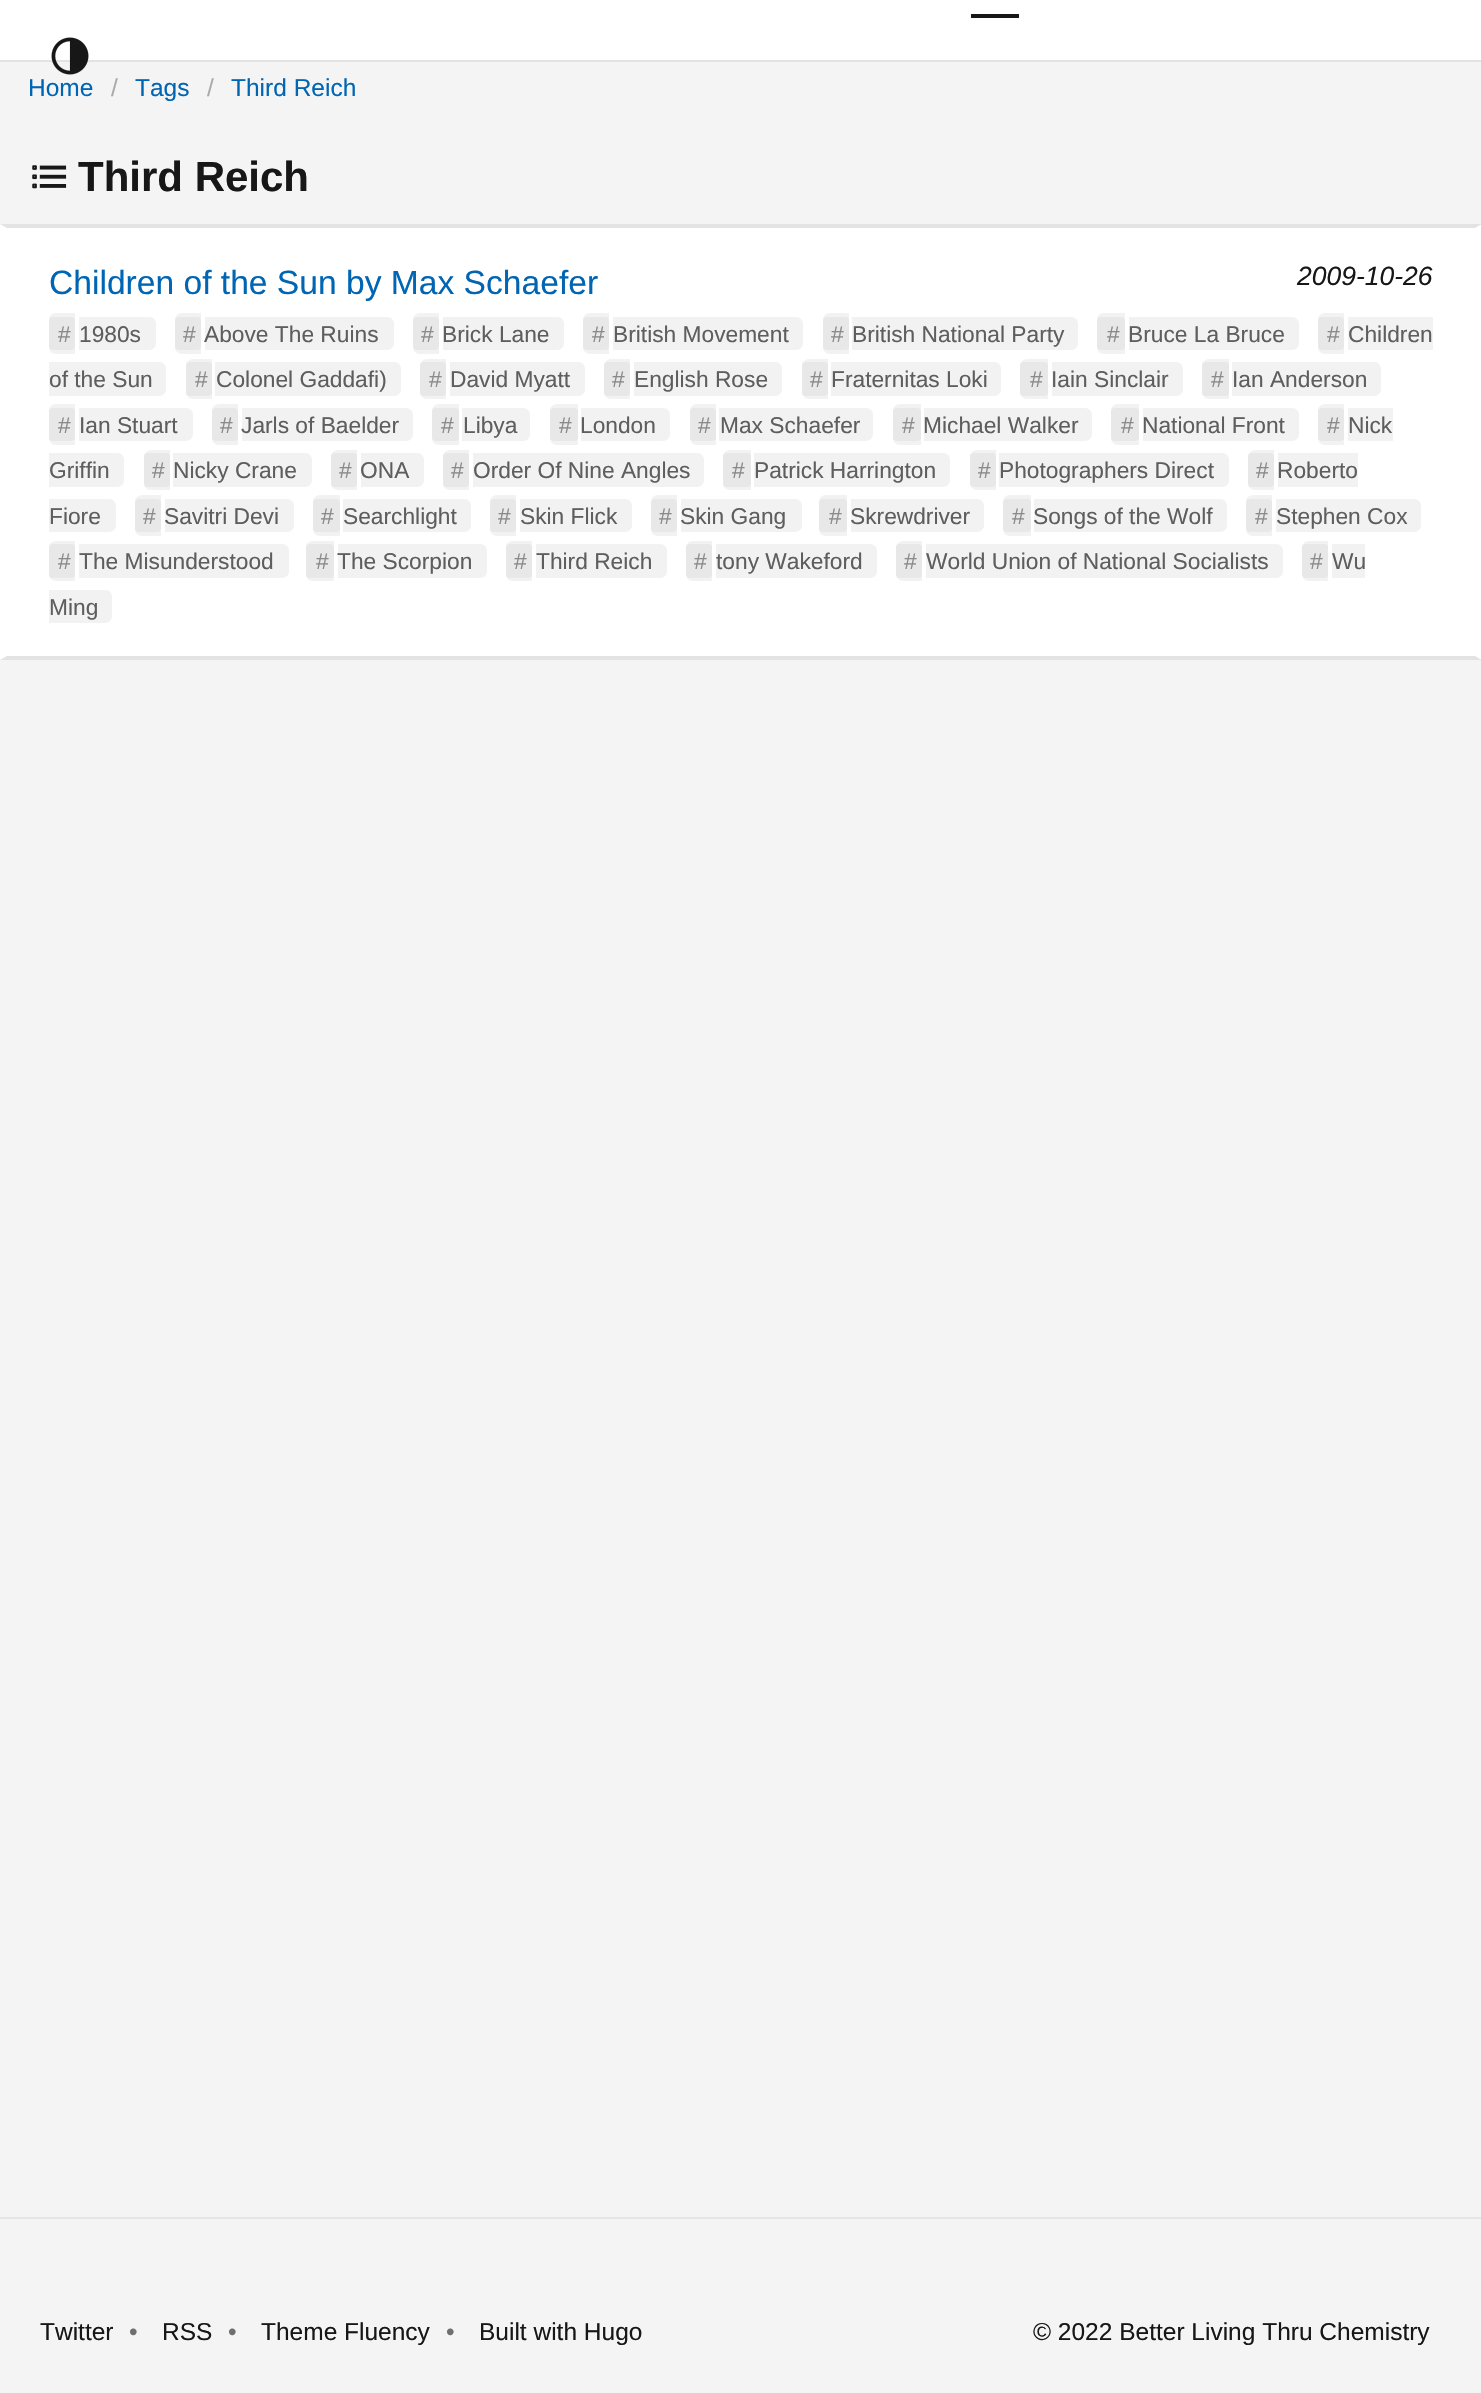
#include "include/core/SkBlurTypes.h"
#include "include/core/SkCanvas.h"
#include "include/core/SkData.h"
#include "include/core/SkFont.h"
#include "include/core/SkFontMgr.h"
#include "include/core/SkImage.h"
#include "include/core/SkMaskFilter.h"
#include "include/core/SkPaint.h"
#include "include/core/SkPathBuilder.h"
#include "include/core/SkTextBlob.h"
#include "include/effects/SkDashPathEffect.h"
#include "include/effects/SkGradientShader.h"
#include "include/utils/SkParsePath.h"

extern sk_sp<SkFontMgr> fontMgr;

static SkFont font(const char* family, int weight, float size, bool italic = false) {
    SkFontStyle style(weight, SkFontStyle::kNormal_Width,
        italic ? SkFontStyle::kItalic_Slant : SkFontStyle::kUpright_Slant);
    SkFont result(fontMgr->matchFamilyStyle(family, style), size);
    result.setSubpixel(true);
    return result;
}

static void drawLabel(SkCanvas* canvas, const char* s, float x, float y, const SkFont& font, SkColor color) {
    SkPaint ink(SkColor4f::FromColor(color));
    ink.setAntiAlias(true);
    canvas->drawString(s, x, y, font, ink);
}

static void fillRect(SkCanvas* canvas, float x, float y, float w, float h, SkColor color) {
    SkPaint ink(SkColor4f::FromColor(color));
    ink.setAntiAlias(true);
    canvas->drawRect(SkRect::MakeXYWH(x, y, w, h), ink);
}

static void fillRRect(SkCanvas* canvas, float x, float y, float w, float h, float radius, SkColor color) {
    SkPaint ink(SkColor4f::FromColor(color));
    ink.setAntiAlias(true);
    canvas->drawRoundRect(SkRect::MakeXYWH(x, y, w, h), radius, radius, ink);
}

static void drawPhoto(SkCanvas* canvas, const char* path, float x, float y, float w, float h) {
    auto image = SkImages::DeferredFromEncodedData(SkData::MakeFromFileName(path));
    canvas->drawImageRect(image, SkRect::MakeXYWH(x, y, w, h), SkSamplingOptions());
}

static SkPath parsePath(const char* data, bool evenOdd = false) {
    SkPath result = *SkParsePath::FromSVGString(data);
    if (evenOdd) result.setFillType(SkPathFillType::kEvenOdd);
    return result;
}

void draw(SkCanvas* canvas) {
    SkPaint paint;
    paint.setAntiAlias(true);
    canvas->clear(0xFFF4F4F4);
    fillRect(canvas, 0, 0, 1481, 60, 0xFFFFFFFF);
    fillRect(canvas, 0, 60, 1481, 2, 0xFFE3E3E3);
    fillRect(canvas, 971, 14, 48, 4, 0xFF171717);
    drawPhoto(canvas, "assets/img1.png", 51, 37, 38, 38);
    SkFont font1 = font("Liberation Sans", 400, 24.5f);
    drawLabel(canvas, "Home", 28, 96, font1, 0xFF0065B3);
    drawLabel(canvas, "/", 111, 96, font1, 0xFFABABAB);
    drawLabel(canvas, "Tags", 135, 96, font1, 0xFF0065B3);
    drawLabel(canvas, "/", 207, 96, font1, 0xFFABABAB);
    drawLabel(canvas, "Third Reich", 231, 96, font1, 0xFF0065B3);
    drawPhoto(canvas, "assets/img2.png", 32, 165, 35, 24);
    SkFont font2 = font("Liberation Sans", 700, 42);
    drawLabel(canvas, "Third Reich", 78, 191, font2, 0xFF171717);
    fillRect(canvas, 0, 224, 1481, 436, 0xFFFFFFFF);
    paint.setColor(0xFFE3E3E3);
    canvas->drawPath(parsePath("M0 224H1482L1475 228H7Z"), paint);
    canvas->drawPath(parsePath("M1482 660H0L7 656H1475Z"), paint);
    SkFont font3 = font("Liberation Sans", 400, 33.6f);
    drawLabel(canvas, "Children of the Sun by Max Schaefer", 49, 294, font3, 0xFF0065B3);
    SkFont font4 = font("Liberation Sans", 400, 26.5f, true);
    drawLabel(canvas, "2009-10-26", 1297, 285, font4, 0xFF171717);
    paint.setColor(0xFFF2F2F2);
    canvas->drawPath(parsePath("M56 313H75V354H56C52 354 49 351 49 347V320C49 316 52 313 56 313Z"), paint);
    fillRRect(canvas, 49, 317, 26, 33, 4, 0xFFE8E8E8);
    SkFont font5 = font("Liberation Sans", 400, 22.75f);
    drawLabel(canvas, "#", 58, 342, font5, 0xFF8A8A8A);
    canvas->drawPath(parsePath("M79 317H149C153 317 156 320 156 324V343C156 347 153 350 149 350H79Z"), paint);
    drawLabel(canvas, "1980s", 79, 342, font5, 0xFF5E5E5E);
    canvas->drawPath(parsePath("M182 313H201V354H182C178 354 175 351 175 347V320C175 316 178 313 182 313Z"), paint);
    fillRRect(canvas, 175, 317, 26, 33, 4, 0xFFE8E8E8);
    drawLabel(canvas, "#", 183, 342, font5, 0xFF8A8A8A);
    canvas->drawPath(parsePath("M205 317H387C391 317 394 320 394 324V343C394 347 391 350 387 350H205Z"), paint);
    drawLabel(canvas, "Above The Ruins", 204, 342, font5, 0xFF5E5E5E);
    canvas->drawPath(parsePath("M420 313H439V354H420C416 354 413 351 413 347V320C413 316 416 313 420 313Z"), paint);
    fillRRect(canvas, 413, 317, 26, 33, 4, 0xFFE8E8E8);
    drawLabel(canvas, "#", 421, 342, font5, 0xFF8A8A8A);
    canvas->drawPath(parsePath("M443 317H557C561 317 564 320 564 324V343C564 347 561 350 557 350H443Z"), paint);
    drawLabel(canvas, "Brick Lane", 442, 342, font5, 0xFF5E5E5E);
    canvas->drawPath(parsePath("M590 313H609V354H590C586 354 583 351 583 347V320C583 316 586 313 590 313Z"), paint);
    fillRRect(canvas, 583, 317, 26, 33, 4, 0xFFE8E8E8);
    drawLabel(canvas, "#", 592, 342, font5, 0xFF8A8A8A);
    canvas->drawPath(parsePath("M613 317H796C800 317 803 320 803 324V343C803 347 800 350 796 350H613Z"), paint);
    drawLabel(canvas, "British Movement", 613, 342, font5, 0xFF5E5E5E);
    canvas->drawPath(parsePath("M830 313H849V354H830C826 354 823 351 823 347V320C823 316 826 313 830 313Z"), paint);
    fillRRect(canvas, 823, 317, 26, 33, 4, 0xFFE8E8E8);
    drawLabel(canvas, "#", 831, 342, font5, 0xFF8A8A8A);
    canvas->drawPath(parsePath("M852 317H1071C1075 317 1078 320 1078 324V343C1078 347 1075 350 1071 350H852Z"), paint);
    drawLabel(canvas, "British National Party", 852, 342, font5, 0xFF5E5E5E);
    canvas->drawPath(parsePath("M1104 313H1125V354H1104C1100 354 1097 351 1097 347V320C1097 316 1100 313 1104 313Z"), paint);
    fillRRect(canvas, 1097, 317, 28, 33, 4, 0xFFE8E8E8);
    drawLabel(canvas, "#", 1107, 342, font5, 0xFF8A8A8A);
    canvas->drawPath(parsePath("M1129 317H1292C1296 317 1299 320 1299 324V343C1299 347 1296 350 1292 350H1129Z"), paint);
    drawLabel(canvas, "Bruce La Bruce", 1128, 342, font5, 0xFF5E5E5E);
    canvas->drawPath(parsePath("M1325 313H1344V354H1325C1321 354 1318 351 1318 347V320C1318 316 1321 313 1325 313Z"), paint);
    fillRRect(canvas, 1318, 317, 26, 33, 4, 0xFFE8E8E8);
    drawLabel(canvas, "#", 1327, 342, font5, 0xFF8A8A8A);
    fillRect(canvas, 1348, 317, 85, 33, 0xFFF2F2F2);
    drawLabel(canvas, "Children", 1348, 342, font5, 0xFF5E5E5E);
    canvas->drawPath(parsePath("M49 362H159C163 362 166 365 166 369V389C166 393 163 396 159 396H49Z"), paint);
    drawLabel(canvas, "of the Sun", 49, 387, font5, 0xFF5E5E5E);
    canvas->drawPath(parsePath("M193 359H212V399H193C189 399 186 396 186 392V366C186 362 189 359 193 359Z"), paint);
    fillRRect(canvas, 186, 362, 26, 34, 4, 0xFFE8E8E8);
    drawLabel(canvas, "#", 195, 387, font5, 0xFF8A8A8A);
    canvas->drawPath(parsePath("M215 362H394C398 362 401 365 401 369V389C401 393 398 396 394 396H215Z"), paint);
    drawLabel(canvas, "Colonel Gaddafi)", 216, 387, font5, 0xFF5E5E5E);
    canvas->drawPath(parsePath("M427 359H446V399H427C423 399 420 396 420 392V366C420 362 423 359 427 359Z"), paint);
    fillRRect(canvas, 420, 362, 26, 34, 4, 0xFFE8E8E8);
    drawLabel(canvas, "#", 429, 387, font5, 0xFF8A8A8A);
    canvas->drawPath(parsePath("M450 362H578C582 362 585 365 585 369V389C585 393 582 396 578 396H450Z"), paint);
    drawLabel(canvas, "David Myatt", 450, 387, font5, 0xFF5E5E5E);
    canvas->drawPath(parsePath("M611 359H630V399H611C607 399 604 396 604 392V366C604 362 607 359 611 359Z"), paint);
    fillRRect(canvas, 604, 362, 26, 34, 4, 0xFFE8E8E8);
    drawLabel(canvas, "#", 612, 387, font5, 0xFF8A8A8A);
    canvas->drawPath(parsePath("M634 362H775C779 362 782 365 782 369V389C782 393 779 396 775 396H634Z"), paint);
    drawLabel(canvas, "English Rose", 634, 387, font5, 0xFF5E5E5E);
    canvas->drawPath(parsePath("M809 359H828V399H809C805 399 802 396 802 392V366C802 362 805 359 809 359Z"), paint);
    fillRRect(canvas, 802, 362, 26, 34, 4, 0xFFE8E8E8);
    drawLabel(canvas, "#", 810, 387, font5, 0xFF8A8A8A);
    canvas->drawPath(parsePath("M831 362H994C998 362 1001 365 1001 369V389C1001 393 998 396 994 396H831Z"), paint);
    drawLabel(canvas, "Fraternitas Loki", 831, 387, font5, 0xFF5E5E5E);
    canvas->drawPath(parsePath("M1027 359H1048V399H1027C1023 399 1020 396 1020 392V366C1020 362 1023 359 1027 359Z"), paint);
    fillRRect(canvas, 1020, 362, 28, 34, 4, 0xFFE8E8E8);
    drawLabel(canvas, "#", 1030, 387, font5, 0xFF8A8A8A);
    canvas->drawPath(parsePath("M1052 362H1176C1180 362 1183 365 1183 369V389C1183 393 1180 396 1176 396H1052Z"), paint);
    drawLabel(canvas, "Iain Sinclair", 1051, 387, font5, 0xFF5E5E5E);
    canvas->drawPath(parsePath("M1209 359H1229V399H1209C1205 399 1202 396 1202 392V366C1202 362 1205 359 1209 359Z"), paint);
    fillRRect(canvas, 1202, 362, 27, 34, 4, 0xFFE8E8E8);
    drawLabel(canvas, "#", 1211, 387, font5, 0xFF8A8A8A);
    canvas->drawPath(parsePath("M1232 362H1374C1378 362 1381 365 1381 369V389C1381 393 1378 396 1374 396H1232Z"), paint);
    drawLabel(canvas, "Ian Anderson", 1232, 387, font5, 0xFF5E5E5E);
    canvas->drawPath(parsePath("M56 404H75V445H56C52 445 49 442 49 438V411C49 407 52 404 56 404Z"), paint);
    fillRRect(canvas, 49, 408, 26, 33, 4, 0xFFE8E8E8);
    drawLabel(canvas, "#", 58, 433, font5, 0xFF8A8A8A);
    canvas->drawPath(parsePath("M79 408H186C190 408 193 411 193 415V434C193 438 190 441 186 441H79Z"), paint);
    drawLabel(canvas, "Ian Stuart", 79, 433, font5, 0xFF5E5E5E);
    canvas->drawPath(parsePath("M219 404H238V445H219C215 445 212 442 212 438V411C212 407 215 404 219 404Z"), paint);
    fillRRect(canvas, 212, 408, 26, 33, 4, 0xFFE8E8E8);
    drawLabel(canvas, "#", 220, 433, font5, 0xFF8A8A8A);
    canvas->drawPath(parsePath("M242 408H406C410 408 413 411 413 415V434C413 438 410 441 406 441H242Z"), paint);
    drawLabel(canvas, "Jarls of Baelder", 241, 433, font5, 0xFF5E5E5E);
    canvas->drawPath(parsePath("M439 404H459V445H439C435 445 432 442 432 438V411C432 407 435 404 439 404Z"), paint);
    fillRRect(canvas, 432, 408, 27, 33, 4, 0xFFE8E8E8);
    drawLabel(canvas, "#", 441, 433, font5, 0xFF8A8A8A);
    canvas->drawPath(parsePath("M462 408H523C527 408 530 411 530 415V434C530 438 527 441 523 441H462Z"), paint);
    drawLabel(canvas, "Libya", 463, 433, font5, 0xFF5E5E5E);
    canvas->drawPath(parsePath("M557 404H578V445H557C553 445 550 442 550 438V411C550 407 553 404 557 404Z"), paint);
    fillRRect(canvas, 550, 408, 28, 33, 4, 0xFFE8E8E8);
    drawLabel(canvas, "#", 559, 433, font5, 0xFF8A8A8A);
    canvas->drawPath(parsePath("M581 408H663C667 408 670 411 670 415V434C670 438 667 441 663 441H581Z"), paint);
    drawLabel(canvas, "London", 580, 433, font5, 0xFF5E5E5E);
    canvas->drawPath(parsePath("M697 404H716V445H697C693 445 690 442 690 438V411C690 407 693 404 697 404Z"), paint);
    fillRRect(canvas, 690, 408, 26, 33, 4, 0xFFE8E8E8);
    drawLabel(canvas, "#", 698, 433, font5, 0xFF8A8A8A);
    canvas->drawPath(parsePath("M719 408H866C870 408 873 411 873 415V434C873 438 870 441 866 441H719Z"), paint);
    drawLabel(canvas, "Max Schaefer", 720, 433, font5, 0xFF5E5E5E);
    canvas->drawPath(parsePath("M900 404H921V445H900C896 445 893 442 893 438V411C893 407 896 404 900 404Z"), paint);
    fillRRect(canvas, 893, 408, 28, 33, 4, 0xFFE8E8E8);
    drawLabel(canvas, "#", 902, 433, font5, 0xFF8A8A8A);
    canvas->drawPath(parsePath("M924 408H1085C1089 408 1092 411 1092 415V434C1092 438 1089 441 1085 441H924Z"), paint);
    drawLabel(canvas, "Michael Walker", 923, 433, font5, 0xFF5E5E5E);
    canvas->drawPath(parsePath("M1118 404H1139V445H1118C1114 445 1111 442 1111 438V411C1111 407 1114 404 1118 404Z"), paint);
    fillRRect(canvas, 1111, 408, 28, 33, 4, 0xFFE8E8E8);
    drawLabel(canvas, "#", 1121, 433, font5, 0xFF8A8A8A);
    canvas->drawPath(parsePath("M1143 408H1292C1296 408 1299 411 1299 415V434C1299 438 1296 441 1292 441H1143Z"), paint);
    drawLabel(canvas, "National Front", 1142, 433, font5, 0xFF5E5E5E);
    canvas->drawPath(parsePath("M1325 404H1344V445H1325C1321 445 1318 442 1318 438V411C1318 407 1321 404 1325 404Z"), paint);
    fillRRect(canvas, 1318, 408, 26, 33, 4, 0xFFE8E8E8);
    drawLabel(canvas, "#", 1327, 433, font5, 0xFF8A8A8A);
    fillRect(canvas, 1348, 408, 45, 33, 0xFFF2F2F2);
    drawLabel(canvas, "Nick", 1348, 433, font5, 0xFF5E5E5E);
    canvas->drawPath(parsePath("M49 453H117C121 453 124 456 124 460V480C124 484 121 487 117 487H49Z"), paint);
    drawLabel(canvas, "Griffin", 49, 478, font5, 0xFF5E5E5E);
    canvas->drawPath(parsePath("M151 450H170V490H151C147 490 144 487 144 483V457C144 453 147 450 151 450Z"), paint);
    fillRRect(canvas, 144, 453, 26, 34, 4, 0xFFE8E8E8);
    drawLabel(canvas, "#", 152, 478, font5, 0xFF8A8A8A);
    canvas->drawPath(parsePath("M173 453H305C309 453 312 456 312 460V480C312 484 309 487 305 487H173Z"), paint);
    drawLabel(canvas, "Nicky Crane", 173, 478, font5, 0xFF5E5E5E);
    canvas->drawPath(parsePath("M338 450H357V490H338C334 490 331 487 331 483V457C331 453 334 450 338 450Z"), paint);
    fillRRect(canvas, 331, 453, 26, 34, 4, 0xFFE8E8E8);
    drawLabel(canvas, "#", 339, 478, font5, 0xFF8A8A8A);
    canvas->drawPath(parsePath("M361 453H417C421 453 424 456 424 460V480C424 484 421 487 417 487H361Z"), paint);
    drawLabel(canvas, "ONA", 360, 478, font5, 0xFF5E5E5E);
    canvas->drawPath(parsePath("M450 450H469V490H450C446 490 443 487 443 483V457C443 453 446 450 450 450Z"), paint);
    fillRRect(canvas, 443, 453, 26, 34, 4, 0xFFE8E8E8);
    drawLabel(canvas, "#", 451, 478, font5, 0xFF8A8A8A);
    canvas->drawPath(parsePath("M473 453H697C701 453 704 456 704 460V480C704 484 701 487 697 487H473Z"), paint);
    drawLabel(canvas, "Order Of Nine Angles", 473, 478, font5, 0xFF5E5E5E);
    canvas->drawPath(parsePath("M730 450H751V490H730C726 490 723 487 723 483V457C723 453 726 450 730 450Z"), paint);
    fillRRect(canvas, 723, 453, 28, 34, 4, 0xFFE8E8E8);
    drawLabel(canvas, "#", 732, 478, font5, 0xFF8A8A8A);
    canvas->drawPath(parsePath("M754 453H943C947 453 950 456 950 460V480C950 484 947 487 943 487H754Z"), paint);
    drawLabel(canvas, "Patrick Harrington", 754, 478, font5, 0xFF5E5E5E);
    canvas->drawPath(parsePath("M977 450H996V490H977C973 490 970 487 970 483V457C970 453 973 450 977 450Z"), paint);
    fillRRect(canvas, 970, 453, 26, 34, 4, 0xFFE8E8E8);
    drawLabel(canvas, "#", 978, 478, font5, 0xFF8A8A8A);
    canvas->drawPath(parsePath("M999 453H1222C1226 453 1229 456 1229 460V480C1229 484 1226 487 1222 487H999Z"), paint);
    drawLabel(canvas, "Photographers Direct", 999, 478, font5, 0xFF5E5E5E);
    canvas->drawPath(parsePath("M1255 450H1274V490H1255C1251 490 1248 487 1248 483V457C1248 453 1251 450 1255 450Z"), paint);
    fillRRect(canvas, 1248, 453, 26, 34, 4, 0xFFE8E8E8);
    drawLabel(canvas, "#", 1256, 478, font5, 0xFF8A8A8A);
    fillRect(canvas, 1278, 453, 80, 34, 0xFFF2F2F2);
    drawLabel(canvas, "Roberto", 1277, 478, font5, 0xFF5E5E5E);
    canvas->drawPath(parsePath("M49 499H109C113 499 116 502 116 506V525C116 529 113 532 109 532H49Z"), paint);
    drawLabel(canvas, "Fiore", 49, 524, font5, 0xFF5E5E5E);
    canvas->drawPath(parsePath("M142 495H161V536H142C138 536 135 533 135 529V502C135 498 138 495 142 495Z"), paint);
    fillRRect(canvas, 135, 499, 26, 33, 4, 0xFFE8E8E8);
    drawLabel(canvas, "#", 143, 524, font5, 0xFF8A8A8A);
    canvas->drawPath(parsePath("M165 499H287C291 499 294 502 294 506V525C294 529 291 532 287 532H165Z"), paint);
    drawLabel(canvas, "Savitri Devi", 164, 524, font5, 0xFF5E5E5E);
    canvas->drawPath(parsePath("M320 495H340V536H320C316 536 313 533 313 529V502C313 498 316 495 320 495Z"), paint);
    fillRRect(canvas, 313, 499, 27, 33, 4, 0xFFE8E8E8);
    drawLabel(canvas, "#", 321, 524, font5, 0xFF8A8A8A);
    canvas->drawPath(parsePath("M343 499H464C468 499 471 502 471 506V525C471 529 468 532 464 532H343Z"), paint);
    drawLabel(canvas, "Searchlight", 343, 524, font5, 0xFF5E5E5E);
    canvas->drawPath(parsePath("M497 495H516V536H497C493 536 490 533 490 529V502C490 498 493 495 497 495Z"), paint);
    fillRRect(canvas, 490, 499, 26, 33, 4, 0xFFE8E8E8);
    drawLabel(canvas, "#", 498, 524, font5, 0xFF8A8A8A);
    canvas->drawPath(parsePath("M520 499H625C629 499 632 502 632 506V525C632 529 629 532 625 532H520Z"), paint);
    drawLabel(canvas, "Skin Flick", 520, 524, font5, 0xFF5E5E5E);
    canvas->drawPath(parsePath("M658 495H677V536H658C654 536 651 533 651 529V502C651 498 654 495 658 495Z"), paint);
    fillRRect(canvas, 651, 499, 26, 33, 4, 0xFFE8E8E8);
    drawLabel(canvas, "#", 659, 524, font5, 0xFF8A8A8A);
    canvas->drawPath(parsePath("M681 499H795C799 499 802 502 802 506V525C802 529 799 532 795 532H681Z"), paint);
    drawLabel(canvas, "Skin Gang", 680, 524, font5, 0xFF5E5E5E);
    canvas->drawPath(parsePath("M826 495H847V536H826C822 536 819 533 819 529V502C819 498 822 495 826 495Z"), paint);
    fillRRect(canvas, 819, 499, 28, 33, 4, 0xFFE8E8E8);
    drawLabel(canvas, "#", 829, 524, font5, 0xFF8A8A8A);
    canvas->drawPath(parsePath("M851 499H977C981 499 984 502 984 506V525C984 529 981 532 977 532H851Z"), paint);
    drawLabel(canvas, "Skrewdriver", 850, 524, font5, 0xFF5E5E5E);
    canvas->drawPath(parsePath("M1010 495H1031V536H1010C1006 536 1003 533 1003 529V502C1003 498 1006 495 1010 495Z"), paint);
    fillRRect(canvas, 1003, 499, 28, 33, 4, 0xFFE8E8E8);
    drawLabel(canvas, "#", 1012, 524, font5, 0xFF8A8A8A);
    canvas->drawPath(parsePath("M1034 499H1220C1224 499 1227 502 1227 506V525C1227 529 1224 532 1220 532H1034Z"), paint);
    drawLabel(canvas, "Songs of the Wolf", 1033, 524, font5, 0xFF5E5E5E);
    canvas->drawPath(parsePath("M1253 495H1272V536H1253C1249 536 1246 533 1246 529V502C1246 498 1249 495 1253 495Z"), paint);
    fillRRect(canvas, 1246, 499, 26, 33, 4, 0xFFE8E8E8);
    drawLabel(canvas, "#", 1255, 524, font5, 0xFF8A8A8A);
    canvas->drawPath(parsePath("M1276 499H1414C1418 499 1421 502 1421 506V525C1421 529 1418 532 1414 532H1276Z"), paint);
    drawLabel(canvas, "Stephen Cox", 1276, 524, font5, 0xFF5E5E5E);
    canvas->drawPath(parsePath("M56 541H75V581H56C52 581 49 578 49 574V548C49 544 52 541 56 541Z"), paint);
    fillRRect(canvas, 49, 544, 26, 34, 4, 0xFFE8E8E8);
    drawLabel(canvas, "#", 58, 569, font5, 0xFF8A8A8A);
    canvas->drawPath(parsePath("M79 544H282C286 544 289 547 289 551V571C289 575 286 578 282 578H79Z"), paint);
    drawLabel(canvas, "The Misunderstood", 79, 569, font5, 0xFF5E5E5E);
    canvas->drawPath(parsePath("M313 541H334V581H313C309 581 306 578 306 574V548C306 544 309 541 313 541Z"), paint);
    fillRRect(canvas, 306, 544, 28, 34, 4, 0xFFE8E8E8);
    drawLabel(canvas, "#", 316, 569, font5, 0xFF8A8A8A);
    canvas->drawPath(parsePath("M338 544H480C484 544 487 547 487 551V571C487 575 484 578 480 578H338Z"), paint);
    drawLabel(canvas, "The Scorpion", 337, 569, font5, 0xFF5E5E5E);
    canvas->drawPath(parsePath("M513 541H532V581H513C509 581 506 578 506 574V548C506 544 509 541 513 541Z"), paint);
    fillRRect(canvas, 506, 544, 26, 34, 4, 0xFFE8E8E8);
    drawLabel(canvas, "#", 514, 569, font5, 0xFF8A8A8A);
    canvas->drawPath(parsePath("M536 544H660C664 544 667 547 667 551V571C667 575 664 578 660 578H536Z"), paint);
    drawLabel(canvas, "Third Reich", 536, 569, font5, 0xFF5E5E5E);
    canvas->drawPath(parsePath("M693 541H712V581H693C689 581 686 578 686 574V548C686 544 689 541 693 541Z"), paint);
    fillRRect(canvas, 686, 544, 26, 34, 4, 0xFFE8E8E8);
    drawLabel(canvas, "#", 694, 569, font5, 0xFF8A8A8A);
    canvas->drawPath(parsePath("M716 544H870C874 544 877 547 877 551V571C877 575 874 578 870 578H716Z"), paint);
    drawLabel(canvas, "tony Wakeford", 716, 569, font5, 0xFF5E5E5E);
    canvas->drawPath(parsePath("M903 541H922V581H903C899 581 896 578 896 574V548C896 544 899 541 903 541Z"), paint);
    fillRRect(canvas, 896, 544, 26, 34, 4, 0xFFE8E8E8);
    drawLabel(canvas, "#", 904, 569, font5, 0xFF8A8A8A);
    canvas->drawPath(parsePath("M926 544H1276C1280 544 1283 547 1283 551V571C1283 575 1280 578 1276 578H926Z"), paint);
    drawLabel(canvas, "World Union of National Socialists", 926, 569, font5, 0xFF5E5E5E);
    canvas->drawPath(parsePath("M1309 541H1328V581H1309C1305 581 1302 578 1302 574V548C1302 544 1305 541 1309 541Z"), paint);
    fillRRect(canvas, 1302, 544, 26, 34, 4, 0xFFE8E8E8);
    drawLabel(canvas, "#", 1310, 569, font5, 0xFF8A8A8A);
    fillRect(canvas, 1332, 544, 33, 34, 0xFFF2F2F2);
    drawLabel(canvas, "Wu", 1332, 569, font5, 0xFF5E5E5E);
    canvas->drawPath(parsePath("M49 590H105C109 590 112 593 112 597V616C112 620 109 623 105 623H49Z"), paint);
    drawLabel(canvas, "Ming", 49, 615, font5, 0xFF5E5E5E);
    fillRect(canvas, 0, 2217, 1481, 2, 0xFFE6E6E6);
    drawLabel(canvas, "Twitter", 40, 2340, font1, 0xFF171717);
    drawLabel(canvas, "•", 129, 2340, font1, 0xFF6F6F6F);
    drawLabel(canvas, "RSS", 162, 2340, font1, 0xFF171717);
    drawLabel(canvas, "•", 228, 2340, font1, 0xFF6F6F6F);
    drawLabel(canvas, "Theme Fluency", 261, 2340, font1, 0xFF171717);
    drawLabel(canvas, "•", 446, 2340, font1, 0xFF6F6F6F);
    drawLabel(canvas, "Built with Hugo", 479, 2340, font1, 0xFF171717);
    drawLabel(canvas, "© 2022 Better Living Thru Chemistry", 1033, 2340, font1, 0xFF171717);
}
